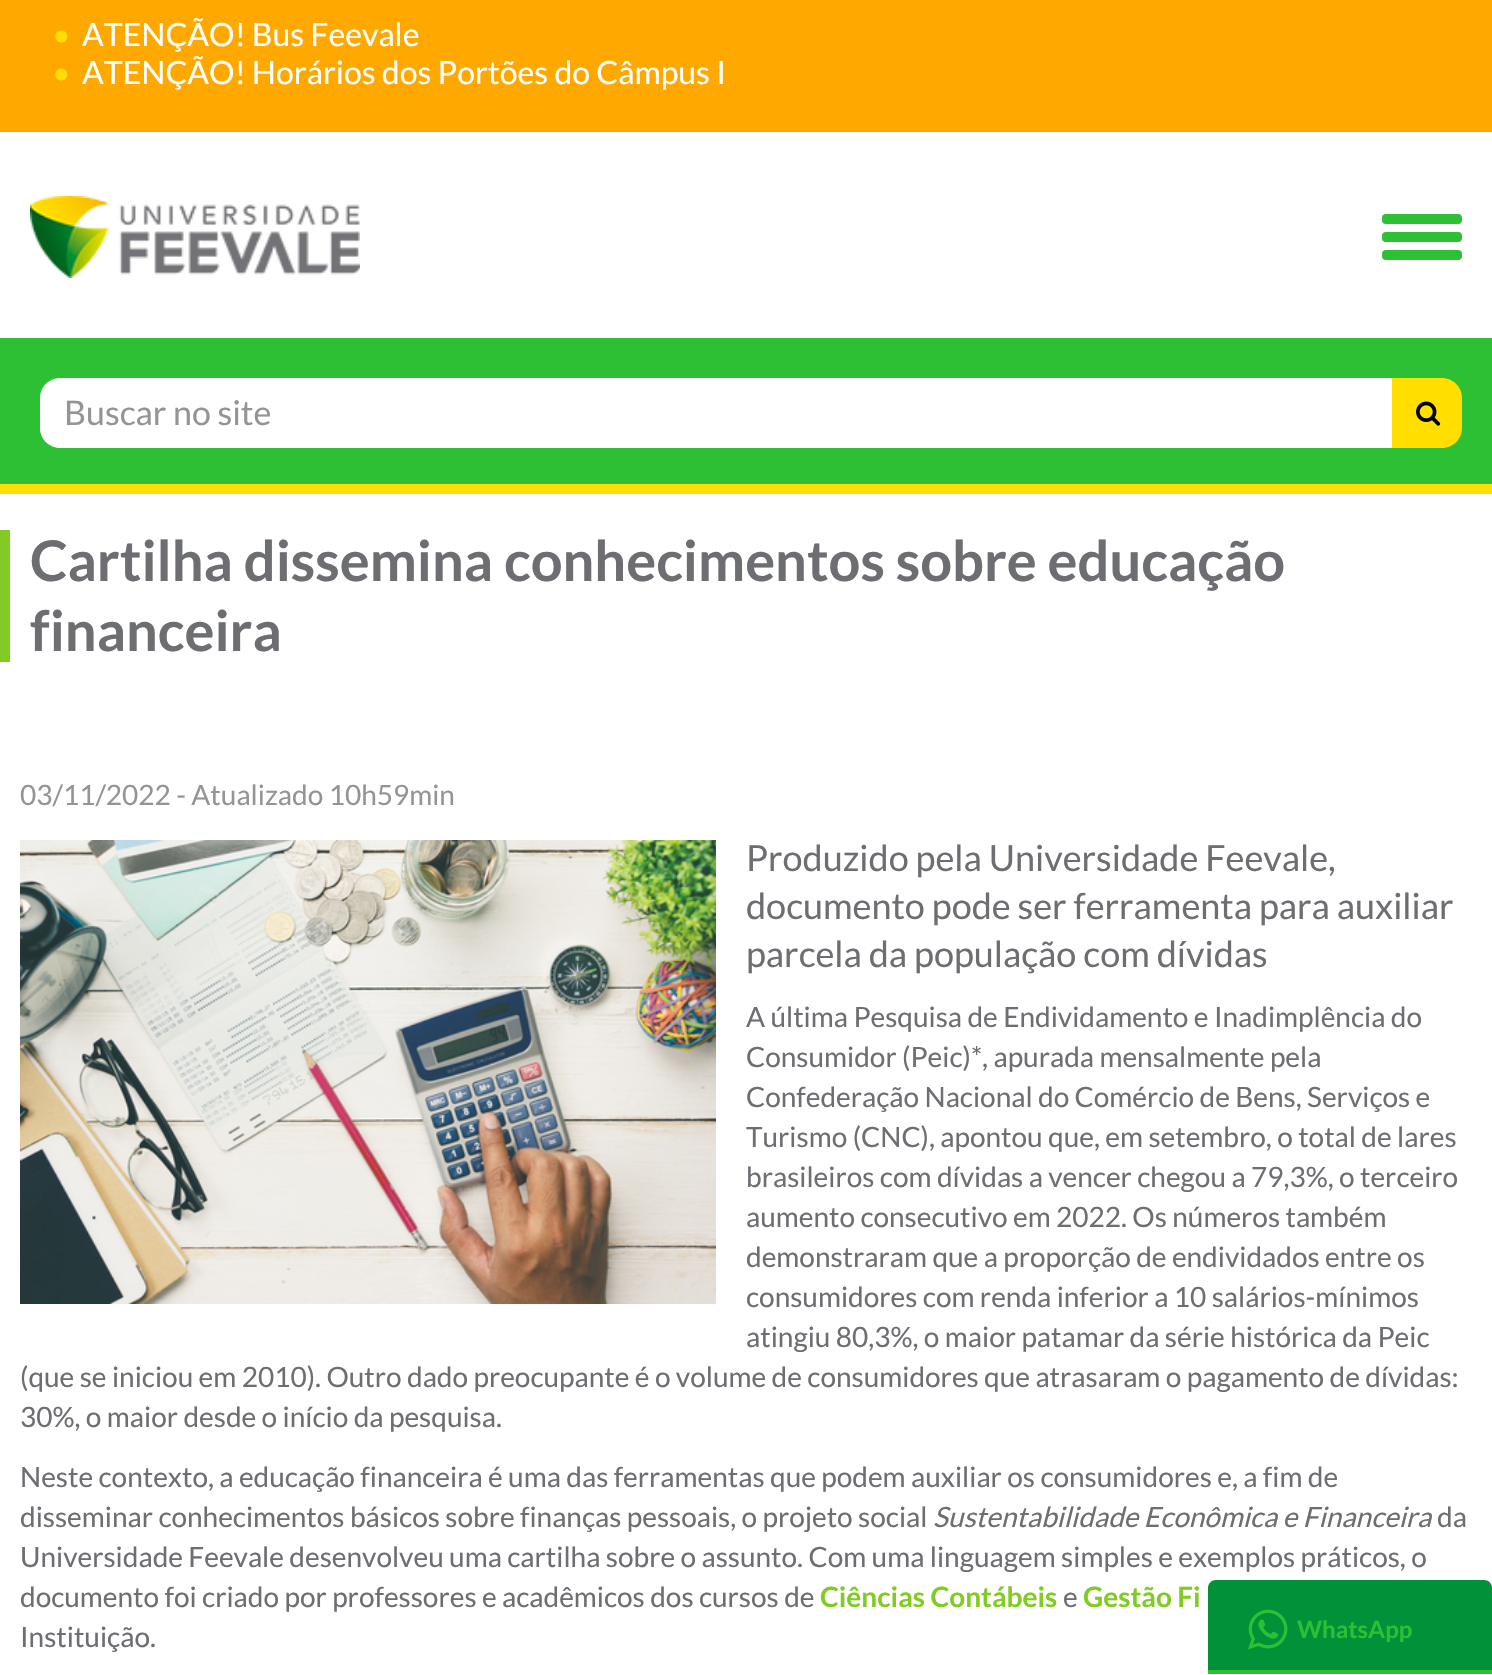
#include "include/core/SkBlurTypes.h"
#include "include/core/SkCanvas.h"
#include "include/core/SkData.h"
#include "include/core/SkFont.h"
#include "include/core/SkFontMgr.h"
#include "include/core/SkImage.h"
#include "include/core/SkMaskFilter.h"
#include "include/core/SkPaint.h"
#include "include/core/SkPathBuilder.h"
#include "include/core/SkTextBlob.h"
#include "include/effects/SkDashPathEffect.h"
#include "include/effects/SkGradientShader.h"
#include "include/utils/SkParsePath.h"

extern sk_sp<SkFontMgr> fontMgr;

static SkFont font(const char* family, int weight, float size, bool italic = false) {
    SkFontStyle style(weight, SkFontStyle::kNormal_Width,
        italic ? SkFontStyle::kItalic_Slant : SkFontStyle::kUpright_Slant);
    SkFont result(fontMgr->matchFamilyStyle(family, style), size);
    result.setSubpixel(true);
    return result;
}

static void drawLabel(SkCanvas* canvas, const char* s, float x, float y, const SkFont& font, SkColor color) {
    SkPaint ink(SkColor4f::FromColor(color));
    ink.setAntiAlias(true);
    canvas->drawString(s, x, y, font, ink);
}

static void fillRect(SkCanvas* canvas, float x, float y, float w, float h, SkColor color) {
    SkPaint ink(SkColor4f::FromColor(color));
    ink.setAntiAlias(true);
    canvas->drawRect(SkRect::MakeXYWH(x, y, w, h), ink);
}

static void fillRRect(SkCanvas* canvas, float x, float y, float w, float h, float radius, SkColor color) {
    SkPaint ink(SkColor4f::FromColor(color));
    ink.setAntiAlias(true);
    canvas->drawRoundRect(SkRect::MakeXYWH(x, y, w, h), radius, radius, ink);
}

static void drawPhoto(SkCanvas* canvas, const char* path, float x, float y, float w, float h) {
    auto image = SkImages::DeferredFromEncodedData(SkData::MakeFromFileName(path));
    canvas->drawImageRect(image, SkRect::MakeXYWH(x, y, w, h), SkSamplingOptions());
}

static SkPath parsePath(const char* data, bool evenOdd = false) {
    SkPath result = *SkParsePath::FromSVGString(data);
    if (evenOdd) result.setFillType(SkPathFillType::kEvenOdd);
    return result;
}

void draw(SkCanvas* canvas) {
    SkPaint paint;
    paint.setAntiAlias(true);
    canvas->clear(0xFFFFFFFF);
    fillRect(canvas, 0, 0, 1492, 132, 0xFFFFA800);
    SkFont font1 = font("Lato", 400, 32);
    drawLabel(canvas, "•", 52, 46, font1, 0xFFFFDD00);
    drawLabel(canvas, "ATENÇÃO! Bus Feevale", 82, 46, font1, 0xFFFFFFFF);
    drawLabel(canvas, "•", 52, 84, font1, 0xFFFFDD00);
    drawLabel(canvas, "ATENÇÃO! Horários dos Portões do Câmpus I", 82, 84, font1, 0xFFFFFFFF);
    drawPhoto(canvas, "assets/img1.png", 30, 196, 330, 82);
    fillRRect(canvas, 1382, 232, 80, 10, 4, 0xFF2EC034);
    fillRRect(canvas, 1382, 214, 80, 10, 4, 0xFF2EC034);
    fillRRect(canvas, 1382, 250, 80, 10, 4, 0xFF2EC034);
    fillRect(canvas, 0, 338, 1492, 146, 0xFF2EC034);
    fillRect(canvas, 0, 484, 1492, 10, 0xFFFFDE00);
    paint.setColor(0xFFFFFFFF);
    canvas->drawPath(parsePath("M60 378H1394V448H60C49 448 40 439 40 428V398C40 387 49 378 60 378Z"), paint);
    SkFont font2 = font("Lato", 400, 34);
    drawLabel(canvas, "Buscar no site", 64, 425, font2, 0xFF949494);
    paint.setColor(0xFFFFDE00);
    canvas->drawPath(parsePath("M1392 378H1442C1453 378 1462 387 1462 398V428C1462 439 1453 448 1442 448H1392Z"), paint);
    drawPhoto(canvas, "assets/img2.png", 1416, 401, 25, 25);
    fillRect(canvas, 0, 530, 10, 132, 0xFF82CB24);
    SkFont font3 = font("Lato", 700, 56);
    drawLabel(canvas, "Cartilha dissemina conhecimentos sobre educação", 30, 581, font3, 0xFF6D6E72);
    drawLabel(canvas, "financeira", 30, 651, font3, 0xFF6D6E72);
    SkFont font4 = font("Lato", 400, 28);
    drawLabel(canvas, "03/11/2022 - Atualizado 10h59min", 20, 805, font4, 0xFF949494);
    drawPhoto(canvas, "assets/img3.png", 20, 840, 696, 464);
    SkFont font5 = font("Lato", 400, 36);
    drawLabel(canvas, "Produzido pela Universidade Feevale,", 746, 871, font5, 0xFF6D6E72);
    drawLabel(canvas, "documento pode ser ferramenta para auxiliar", 746, 919, font5, 0xFF6D6E72);
    drawLabel(canvas, "parcela da população com dívidas", 746, 967, font5, 0xFF6D6E72);
    drawLabel(canvas, "A última Pesquisa de Endividamento e Inadimplência do", 746, 1027, font4, 0xFF6D6E72);
    drawLabel(canvas, "Consumidor (Peic)*, apurada mensalmente pela", 746, 1067, font4, 0xFF6D6E72);
    drawLabel(canvas, "Confederação Nacional do Comércio de Bens, Serviços e", 746, 1107, font4, 0xFF6D6E72);
    drawLabel(canvas, "Turismo (CNC), apontou que, em setembro, o total de lares", 746, 1147, font4, 0xFF6D6E72);
    drawLabel(canvas, "brasileiros com dívidas a vencer chegou a 79,3%, o terceiro", 746, 1187, font4, 0xFF6D6E72);
    drawLabel(canvas, "aumento consecutivo em 2022. Os números também", 746, 1227, font4, 0xFF6D6E72);
    drawLabel(canvas, "demonstraram que a proporção de endividados entre os", 746, 1267, font4, 0xFF6D6E72);
    drawLabel(canvas, "consumidores com renda inferior a 10 salários-mínimos", 746, 1307, font4, 0xFF6D6E72);
    drawLabel(canvas, "atingiu 80,3%, o maior patamar da série histórica da Peic", 746, 1347, font4, 0xFF6D6E72);
    drawLabel(canvas, "(que se iniciou em 2010). Outro dado preocupante é o volume de consumidores que atrasaram o pagamento de dívidas:", 20, 1387, font4, 0xFF6D6E72);
    drawLabel(canvas, "30%, o maior desde o início da pesquisa.", 20, 1427, font4, 0xFF6D6E72);
    drawLabel(canvas, "Neste contexto, a educação financeira é uma das ferramentas que podem auxiliar os consumidores e, a fim de", 20, 1487, font4, 0xFF6D6E72);
    drawLabel(canvas, "disseminar conhecimentos básicos sobre finanças pessoais, o projeto social", 20, 1527, font4, 0xFF6D6E72);
    SkFont font6 = font("Lato", 400, 28, true);
    drawLabel(canvas, "Sustentabilidade Econômica e Financeira", 933, 1527, font6, 0xFF6D6E72);
    drawLabel(canvas, "da", 1437, 1527, font4, 0xFF6D6E72);
    drawLabel(canvas, "Universidade Feevale desenvolveu uma cartilha sobre o assunto. Com uma linguagem simples e exemplos práticos, o", 20, 1567, font4, 0xFF6D6E72);
    drawLabel(canvas, "documento foi criado por professores e acadêmicos dos cursos de", 20, 1607, font4, 0xFF6D6E72);
    SkFont font7 = font("Lato", 700, 28);
    drawLabel(canvas, "Ciências Contábeis", 820, 1607, font7, 0xFF82CB24);
    drawLabel(canvas, "e", 1063, 1607, font4, 0xFF6D6E72);
    drawLabel(canvas, "Gestão Fi", 1083, 1607, font7, 0xFF82CB24);
    drawLabel(canvas, "Instituição.", 20, 1647, font4, 0xFF6D6E72);
    fillRect(canvas, 1208, 1670, 284, 4, 0xFF2EC034);
    paint.setColor(0xFF009139);
    canvas->drawPath(parsePath("M1216 1580H1484C1488.5 1580 1492 1583.5 1492 1588V1670H1208V1588C1208 1583.5 1211.5 1580 1216 1580Z"), paint);
    drawPhoto(canvas, "assets/img4.png", 1248, 1609, 40, 41);
    SkFont font8 = font("Lato", 700, 24);
    drawLabel(canvas, "WhatsApp", 1297, 1638, font8, 0xFF2EC034);
}
